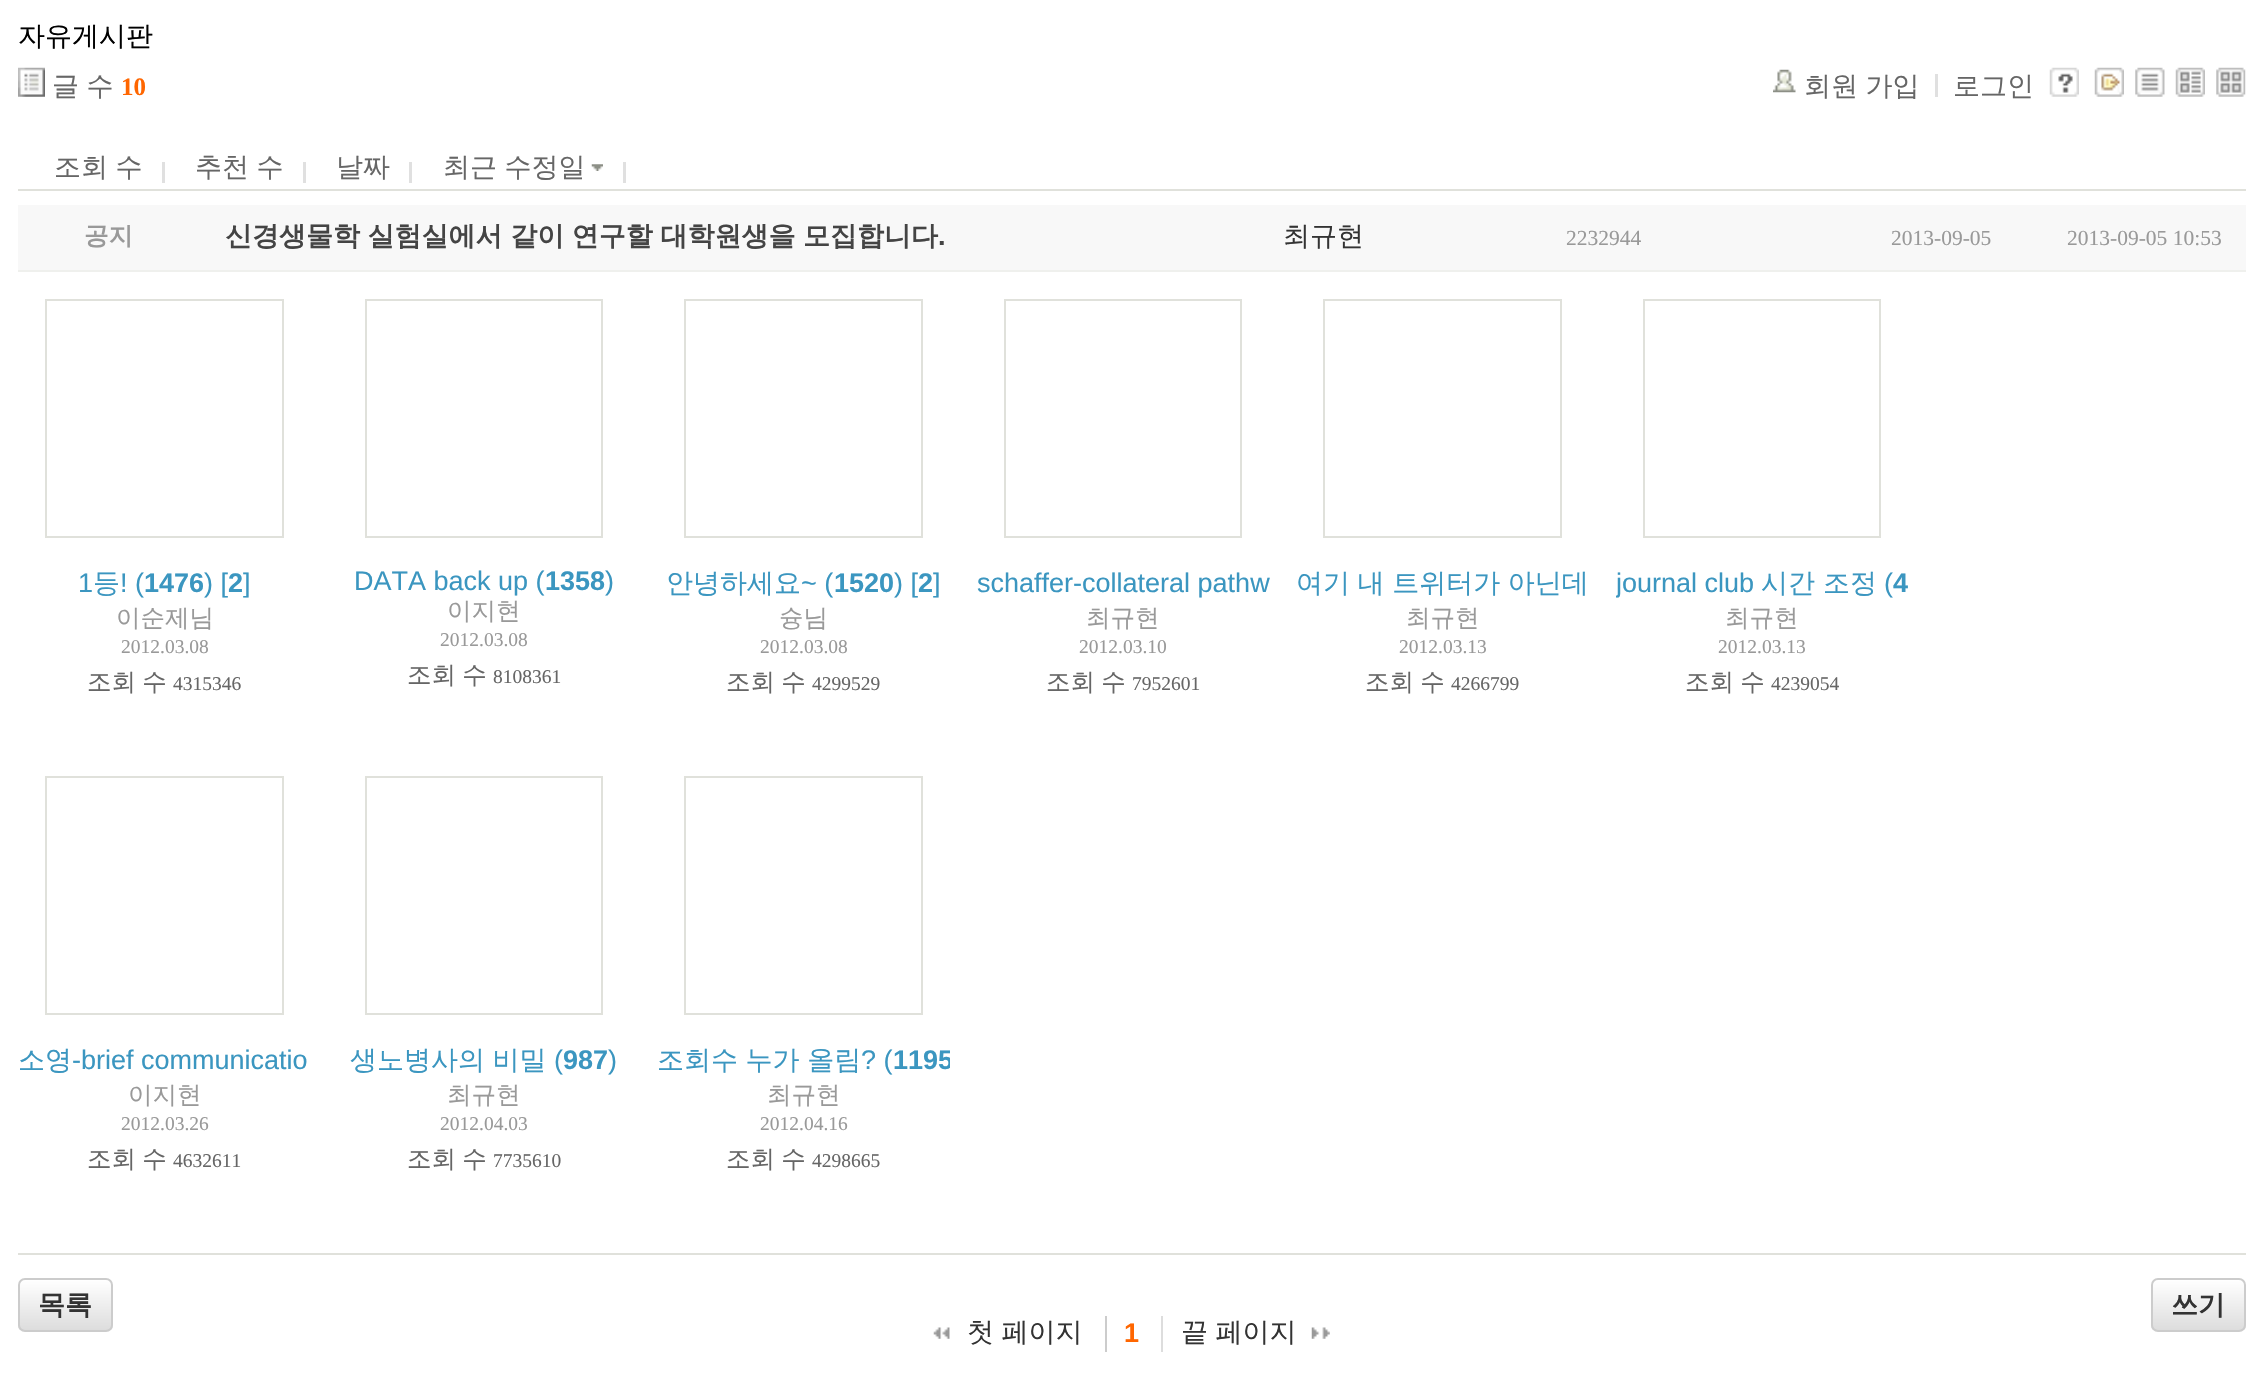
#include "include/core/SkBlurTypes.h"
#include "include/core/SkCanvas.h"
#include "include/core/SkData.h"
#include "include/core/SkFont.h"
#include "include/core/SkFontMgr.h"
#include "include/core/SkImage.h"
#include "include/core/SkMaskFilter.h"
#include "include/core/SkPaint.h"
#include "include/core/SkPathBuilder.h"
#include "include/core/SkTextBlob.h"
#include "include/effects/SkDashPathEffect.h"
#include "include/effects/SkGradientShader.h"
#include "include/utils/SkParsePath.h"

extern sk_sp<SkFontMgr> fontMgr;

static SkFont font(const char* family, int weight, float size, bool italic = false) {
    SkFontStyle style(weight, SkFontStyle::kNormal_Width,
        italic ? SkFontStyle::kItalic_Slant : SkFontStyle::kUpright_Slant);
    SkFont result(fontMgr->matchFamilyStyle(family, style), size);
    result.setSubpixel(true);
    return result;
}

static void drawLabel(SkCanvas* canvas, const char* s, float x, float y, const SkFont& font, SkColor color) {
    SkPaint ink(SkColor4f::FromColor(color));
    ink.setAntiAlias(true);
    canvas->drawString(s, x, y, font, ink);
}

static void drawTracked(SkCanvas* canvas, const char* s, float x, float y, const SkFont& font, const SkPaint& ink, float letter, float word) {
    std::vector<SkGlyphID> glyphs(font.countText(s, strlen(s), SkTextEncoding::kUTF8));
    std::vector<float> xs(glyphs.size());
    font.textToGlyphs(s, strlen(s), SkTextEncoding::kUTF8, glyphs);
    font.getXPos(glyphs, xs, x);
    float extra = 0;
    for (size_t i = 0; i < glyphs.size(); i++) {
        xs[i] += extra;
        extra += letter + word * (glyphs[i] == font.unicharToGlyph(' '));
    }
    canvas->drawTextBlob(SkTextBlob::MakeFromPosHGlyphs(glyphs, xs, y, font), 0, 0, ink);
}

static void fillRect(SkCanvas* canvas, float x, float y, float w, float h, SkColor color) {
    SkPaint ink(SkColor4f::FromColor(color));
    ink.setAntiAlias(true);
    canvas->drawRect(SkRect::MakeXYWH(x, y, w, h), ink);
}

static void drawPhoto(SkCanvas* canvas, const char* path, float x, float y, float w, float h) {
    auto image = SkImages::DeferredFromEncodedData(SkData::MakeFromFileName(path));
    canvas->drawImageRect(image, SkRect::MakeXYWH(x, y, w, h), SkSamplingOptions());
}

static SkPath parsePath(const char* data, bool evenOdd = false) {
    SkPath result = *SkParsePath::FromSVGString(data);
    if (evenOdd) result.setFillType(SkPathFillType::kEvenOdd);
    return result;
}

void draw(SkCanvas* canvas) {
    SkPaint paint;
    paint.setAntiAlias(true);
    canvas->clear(0xFFFFFFFF);
    SkFont font1 = font("WenQuanYi Zen Hei", 500, 27);
    drawLabel(canvas, "자유게시판", 18, 45, font1, 0xFF000000);
    drawPhoto(canvas, "assets/img1.png", 18, 67, 27, 30);
    paint.setColor(0xFF666666);
    drawTracked(canvas, "글 수", 52, 95, font1, paint, 0, -0.5f);
    SkFont font2 = font("Liberation Serif", 700, 25);
    drawLabel(canvas, "10", 121, 95, font2, 0xFFFF6600);
    drawPhoto(canvas, "assets/img2.png", 1773, 69, 23, 24);
    drawTracked(canvas, "회원 가입", 1804, 95, font1, paint, 0, -0.5f);
    drawLabel(canvas, "로그인", 1953, 95, font1, 0xFF666666);
    fillRect(canvas, 1935, 74, 3, 23, 0xFFE0E0E0);
    drawPhoto(canvas, "assets/img3.png", 2049, 67, 30, 30);
    drawPhoto(canvas, "assets/img4.png", 2094, 67, 30, 30);
    drawPhoto(canvas, "assets/img5.png", 2135, 67, 30, 30);
    drawPhoto(canvas, "assets/img6.png", 2175, 67, 30, 30);
    drawPhoto(canvas, "assets/img7.png", 2216, 67, 30, 30);
    fillRect(canvas, 18, 189, 2228, 2, 0xFFE0E1DB);
    drawTracked(canvas, "조회 수", 54, 176, font1, paint, 0, -0.5f);
    fillRect(canvas, 162, 162, 3, 21, 0xFFE0E0E0);
    drawTracked(canvas, "추천 수", 195, 176, font1, paint, 0, -0.5f);
    fillRect(canvas, 303, 162, 3, 21, 0xFFE0E0E0);
    drawLabel(canvas, "날짜", 336, 176, font1, 0xFF666666);
    fillRect(canvas, 409, 162, 3, 21, 0xFFE0E0E0);
    drawTracked(canvas, "최근 수정일", 443, 176, font1, paint, 0, -0.5f);
    fillRect(canvas, 623, 162, 3, 21, 0xFFE0E0E0);
    drawPhoto(canvas, "assets/img8.png", 591, 164, 12, 7);
    fillRect(canvas, 18, 205, 2228, 65, 0xFFF8F8F8);
    fillRect(canvas, 18, 270, 2228, 2, 0xFFEFF0ED);
    SkFont font3 = font("WenQuanYi Zen Hei", 700, 24.5f);
    drawLabel(canvas, "공지", 84, 244, font3, 0xFF999999);
    SkFont font4 = font("WenQuanYi Zen Hei", 700, 27);
    paint.setColor(0xFF444444);
    drawTracked(canvas, "신경생물학 실험실에서 같이 연구할 대학원생을 모집합니다", 225, 245, font4, paint, 0, -0.5f);
    SkFont font5 = font("Liberation Sans", 700, 27);
    drawLabel(canvas, ".", 938, 245, font5, 0xFF444444);
    drawLabel(canvas, "최규현", 1283, 245, font1, 0xFF333333);
    SkFont font6 = font("Liberation Serif", 400, 21.5f);
    drawLabel(canvas, "2232944", 1566, 245, font6, 0xFF999999);
    drawLabel(canvas, "2013-09-05", 1891, 245, font6, 0xFF999999);
    drawLabel(canvas, "2013-09-05 10:53", 2067, 245, font6, 0xFF999999);
    fillRect(canvas, 18, 1253, 2228, 2, 0xFFE0E1DB);
    paint.setStroke(true);
    paint.setStrokeWidth(2);
    paint.setColor(0xFFE0E1DB);
    canvas->drawRect(SkRect::MakeXYWH(46, 300, 237, 237), paint);
    SkFont font7 = font("Liberation Sans", 400, 27);
    drawLabel(canvas, "1", 78, 592, font7, 0xFF3B96C0);
    drawLabel(canvas, "등", 93, 592, font1, 0xFF3B96C0);
    drawLabel(canvas, "! (", 120, 592, font7, 0xFF3B96C0);
    drawLabel(canvas, "1476", 144, 592, font5, 0xFF3B96C0);
    drawLabel(canvas, ") [", 204, 592, font7, 0xFF3B96C0);
    drawLabel(canvas, "2", 228, 592, font5, 0xFF3B96C0);
    drawLabel(canvas, "]", 243, 592, font7, 0xFF3B96C0);
    SkFont font8 = font("WenQuanYi Zen Hei", 500, 24.5f);
    drawLabel(canvas, "이순제님", 116, 626, font8, 0xFF999999);
    SkFont font9 = font("Liberation Serif", 400, 19.5f);
    drawLabel(canvas, "2012.03.08", 121, 653, font9, 0xFF999999);
    paint.setStroke(false);
    paint.setColor(0xFF666666);
    drawTracked(canvas, "조회 수", 87, 690, font8, paint, 0, -1);
    drawLabel(canvas, "4315346", 173, 690, font9, 0xFF666666);
    paint.setStroke(true);
    paint.setColor(0xFFE0E1DB);
    canvas->drawRect(SkRect::MakeXYWH(366, 300, 236, 237), paint);
    drawLabel(canvas, "DATA back up (", 354, 590, font7, 0xFF3B96C0);
    drawLabel(canvas, "1358", 545, 590, font5, 0xFF3B96C0);
    drawLabel(canvas, ")", 605, 590, font7, 0xFF3B96C0);
    drawLabel(canvas, "이지현", 447, 619, font8, 0xFF999999);
    drawLabel(canvas, "2012.03.08", 440, 646, font9, 0xFF999999);
    paint.setStroke(false);
    paint.setColor(0xFF666666);
    drawTracked(canvas, "조회 수", 407, 683, font8, paint, 0, -1);
    drawLabel(canvas, "8108361", 493, 683, font9, 0xFF666666);
    paint.setStroke(true);
    paint.setColor(0xFFE0E1DB);
    canvas->drawRect(SkRect::MakeXYWH(685, 300, 237, 237), paint);
    drawLabel(canvas, "안녕하세요", 666, 592, font1, 0xFF3B96C0);
    drawLabel(canvas, "~ (", 801, 592, font7, 0xFF3B96C0);
    drawLabel(canvas, "1520", 834, 592, font5, 0xFF3B96C0);
    drawLabel(canvas, ") [", 894, 592, font7, 0xFF3B96C0);
    drawLabel(canvas, "2", 918, 592, font5, 0xFF3B96C0);
    drawLabel(canvas, "]", 933, 592, font7, 0xFF3B96C0);
    drawLabel(canvas, "슝님", 779, 626, font8, 0xFF999999);
    drawLabel(canvas, "2012.03.08", 760, 653, font9, 0xFF999999);
    paint.setStroke(false);
    paint.setColor(0xFF666666);
    drawTracked(canvas, "조회 수", 726, 690, font8, paint, 0, -1);
    drawLabel(canvas, "4299529", 812, 690, font9, 0xFF666666);
    paint.setStroke(true);
    paint.setColor(0xFFE0E1DB);
    canvas->drawRect(SkRect::MakeXYWH(1005, 300, 236, 237), paint);
    drawLabel(canvas, "schaffer-collateral pathw", 977, 592, font7, 0xFF3B96C0);
    drawLabel(canvas, "최규현", 1086, 626, font8, 0xFF999999);
    drawLabel(canvas, "2012.03.10", 1079, 653, font9, 0xFF999999);
    paint.setStroke(false);
    paint.setColor(0xFF666666);
    drawTracked(canvas, "조회 수", 1046, 690, font8, paint, 0, -1);
    drawLabel(canvas, "7952601", 1132, 690, font9, 0xFF666666);
    paint.setStroke(true);
    paint.setColor(0xFFE0E1DB);
    canvas->drawRect(SkRect::MakeXYWH(1324, 300, 237, 237), paint);
    paint.setStroke(false);
    paint.setColor(0xFF3B96C0);
    drawTracked(canvas, "여기 내 트위터가 아닌데", 1296, 592, font1, paint, 0, -0.5f);
    drawLabel(canvas, "최규현", 1406, 626, font8, 0xFF999999);
    drawLabel(canvas, "2012.03.13", 1399, 653, font9, 0xFF999999);
    paint.setColor(0xFF666666);
    drawTracked(canvas, "조회 수", 1365, 690, font8, paint, 0, -1);
    drawLabel(canvas, "4266799", 1451, 690, font9, 0xFF666666);
    paint.setStroke(true);
    paint.setColor(0xFFE0E1DB);
    canvas->drawRect(SkRect::MakeXYWH(1644, 300, 236, 237), paint);
    canvas->save();
    canvas->clipRect(SkRect::MakeXYWH(1616, 565, 292, 97));
    drawLabel(canvas, "journal club", 1616, 592, font7, 0xFF3B96C0);
    canvas->restore();
    drawLabel(canvas, "시간", 1761, 592, font1, 0xFF3B96C0);
    drawLabel(canvas, "조정", 1823, 592, font1, 0xFF3B96C0);
    drawLabel(canvas, "(", 1884, 592, font7, 0xFF3B96C0);
    drawLabel(canvas, "4", 1893, 592, font5, 0xFF3B96C0);
    drawLabel(canvas, "최규현", 1725, 626, font8, 0xFF999999);
    drawLabel(canvas, "2012.03.13", 1718, 653, font9, 0xFF999999);
    paint.setStroke(false);
    paint.setColor(0xFF666666);
    drawTracked(canvas, "조회 수", 1685, 690, font8, paint, 0, -1);
    drawLabel(canvas, "4239054", 1771, 690, font9, 0xFF666666);
    paint.setStroke(true);
    paint.setColor(0xFFE0E1DB);
    canvas->drawRect(SkRect::MakeXYWH(46, 777, 237, 237), paint);
    drawLabel(canvas, "소영", 18, 1069, font1, 0xFF3B96C0);
    drawLabel(canvas, "-brief communicatio", 72, 1069, font7, 0xFF3B96C0);
    drawLabel(canvas, "이지현", 128, 1103, font8, 0xFF999999);
    drawLabel(canvas, "2012.03.26", 121, 1130, font9, 0xFF999999);
    paint.setStroke(false);
    paint.setColor(0xFF666666);
    drawTracked(canvas, "조회 수", 87, 1167, font8, paint, 0, -1);
    drawLabel(canvas, "4632611", 173, 1167, font9, 0xFF666666);
    paint.setStroke(true);
    paint.setColor(0xFFE0E1DB);
    canvas->drawRect(SkRect::MakeXYWH(366, 777, 236, 237), paint);
    paint.setStroke(false);
    paint.setColor(0xFF3B96C0);
    drawTracked(canvas, "생노병사의 비밀", 350, 1069, font1, paint, 0, -0.5f);
    drawLabel(canvas, "(", 554, 1069, font7, 0xFF3B96C0);
    drawLabel(canvas, "987", 563, 1069, font5, 0xFF3B96C0);
    drawLabel(canvas, ")", 608, 1069, font7, 0xFF3B96C0);
    drawLabel(canvas, "최규현", 447, 1103, font8, 0xFF999999);
    drawLabel(canvas, "2012.04.03", 440, 1130, font9, 0xFF999999);
    paint.setColor(0xFF666666);
    drawTracked(canvas, "조회 수", 407, 1167, font8, paint, 0, -1);
    drawLabel(canvas, "7735610", 493, 1167, font9, 0xFF666666);
    paint.setStroke(true);
    paint.setColor(0xFFE0E1DB);
    canvas->drawRect(SkRect::MakeXYWH(685, 777, 237, 237), paint);
    paint.setStroke(false);
    paint.setColor(0xFF3B96C0);
    drawTracked(canvas, "조회수 누가 올림", 657, 1069, font1, paint, 0, -0.5f);
    drawLabel(canvas, "? (", 861, 1069, font7, 0xFF3B96C0);
    canvas->save();
    canvas->clipRect(SkRect::MakeXYWH(657, 1042, 293, 97));
    drawLabel(canvas, "1195", 893, 1069, font5, 0xFF3B96C0);
    canvas->restore();
    drawLabel(canvas, "최규현", 767, 1103, font8, 0xFF999999);
    drawLabel(canvas, "2012.04.16", 760, 1130, font9, 0xFF999999);
    paint.setColor(0xFF666666);
    drawTracked(canvas, "조회 수", 726, 1167, font8, paint, 0, -1);
    drawLabel(canvas, "4298665", 812, 1167, font9, 0xFF666666);
    canvas->save();
    canvas->clipPath(parsePath("M25 1278H106C110 1278 113 1281 113 1285V1325C113 1329 110 1332 106 1332H25C21 1332 18 1329 18 1325V1285C18 1281 21 1278 25 1278Z"), true);
    {
        const SkColor colors[] = {0xFFFFFFFF, 0xFFDDDDDD};
        const float stops[] = {0, 1};
        const SkPoint ends[] = {{20, 1280}, {20, 1330}};
        paint.setShader(SkGradientShader::MakeLinear(ends, colors, stops, 2, SkTileMode::kClamp));
        paint.setAlpha(255);
    }
    canvas->drawRect(SkRect::MakeXYWH(18, 1280, 95, 50), paint);
    canvas->restore();
    paint.setStroke(true);
    paint.setShader(nullptr);
    paint.setColor(0xFFCCCCCC);
    canvas->drawRoundRect(SkRect::MakeXYWH(19, 1279, 93, 52), 6, 6, paint);
    drawLabel(canvas, "목록", 38, 1314, font4, 0xFF333333);
    canvas->save();
    canvas->clipPath(parsePath("M2158 1278H2239C2243 1278 2246 1281 2246 1285V1325C2246 1329 2243 1332 2239 1332H2158C2154 1332 2151 1329 2151 1325V1285C2151 1281 2154 1278 2158 1278Z"), true);
    paint.setStroke(false);
    {
        const SkColor colors[] = {0xFFFFFFFF, 0xFFDDDDDD};
        const float stops[] = {0, 1};
        const SkPoint ends[] = {{2153, 1280}, {2153, 1330}};
        paint.setShader(SkGradientShader::MakeLinear(ends, colors, stops, 2, SkTileMode::kClamp));
        paint.setAlpha(255);
    }
    canvas->drawRect(SkRect::MakeXYWH(2151, 1280, 95, 50), paint);
    canvas->restore();
    paint.setStroke(true);
    paint.setShader(nullptr);
    paint.setColor(0xFFCCCCCC);
    canvas->drawRoundRect(SkRect::MakeXYWH(2152, 1279, 93, 52), 6, 6, paint);
    drawLabel(canvas, "쓰기", 2171, 1314, font4, 0xFF333333);
    drawPhoto(canvas, "assets/img9.png", 933, 1327, 17, 12);
    paint.setStroke(false);
    paint.setColor(0xFF333333);
    drawTracked(canvas, "첫 페이지", 967, 1341, font1, paint, 0, -0.5f);
    fillRect(canvas, 1161, 1316, 2, 36, 0xFFDDDDDD);
    fillRect(canvas, 1105, 1316, 2, 36, 0xFFCCCCCC);
    drawLabel(canvas, "1", 1124, 1342, font5, 0xFFFF6600);
    drawPhoto(canvas, "assets/img10.png", 1311, 1327, 19, 12);
    drawTracked(canvas, "끝 페이지", 1181, 1341, font1, paint, 0, -0.5f);
}
